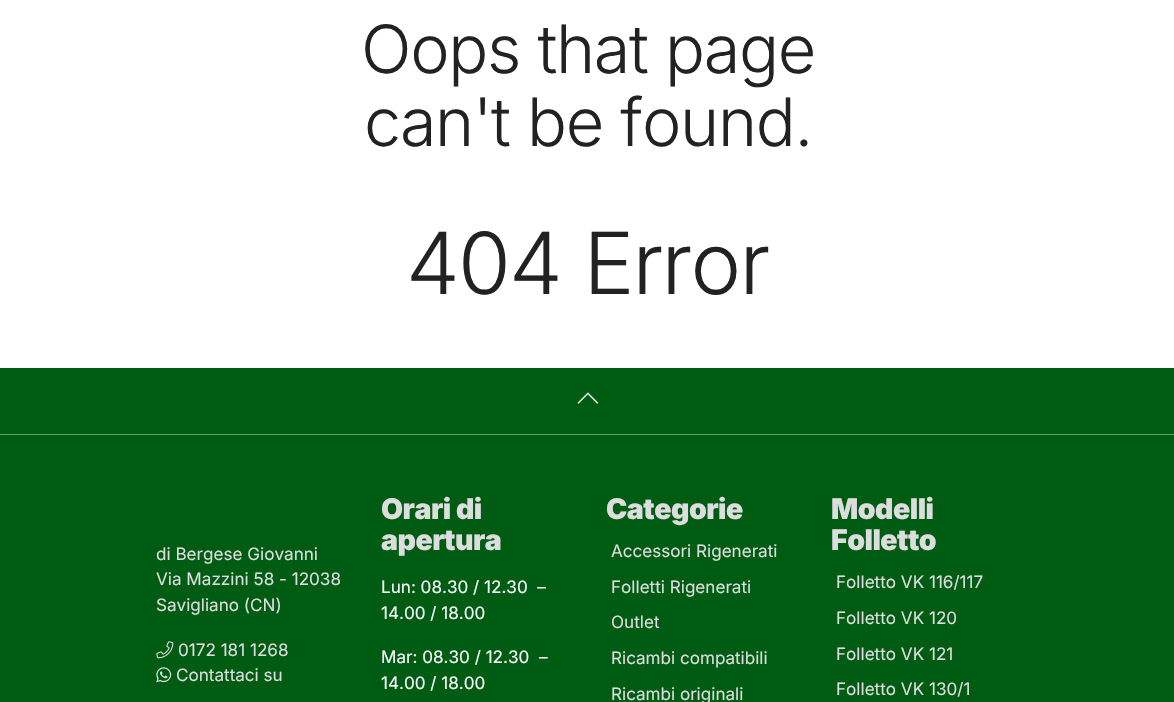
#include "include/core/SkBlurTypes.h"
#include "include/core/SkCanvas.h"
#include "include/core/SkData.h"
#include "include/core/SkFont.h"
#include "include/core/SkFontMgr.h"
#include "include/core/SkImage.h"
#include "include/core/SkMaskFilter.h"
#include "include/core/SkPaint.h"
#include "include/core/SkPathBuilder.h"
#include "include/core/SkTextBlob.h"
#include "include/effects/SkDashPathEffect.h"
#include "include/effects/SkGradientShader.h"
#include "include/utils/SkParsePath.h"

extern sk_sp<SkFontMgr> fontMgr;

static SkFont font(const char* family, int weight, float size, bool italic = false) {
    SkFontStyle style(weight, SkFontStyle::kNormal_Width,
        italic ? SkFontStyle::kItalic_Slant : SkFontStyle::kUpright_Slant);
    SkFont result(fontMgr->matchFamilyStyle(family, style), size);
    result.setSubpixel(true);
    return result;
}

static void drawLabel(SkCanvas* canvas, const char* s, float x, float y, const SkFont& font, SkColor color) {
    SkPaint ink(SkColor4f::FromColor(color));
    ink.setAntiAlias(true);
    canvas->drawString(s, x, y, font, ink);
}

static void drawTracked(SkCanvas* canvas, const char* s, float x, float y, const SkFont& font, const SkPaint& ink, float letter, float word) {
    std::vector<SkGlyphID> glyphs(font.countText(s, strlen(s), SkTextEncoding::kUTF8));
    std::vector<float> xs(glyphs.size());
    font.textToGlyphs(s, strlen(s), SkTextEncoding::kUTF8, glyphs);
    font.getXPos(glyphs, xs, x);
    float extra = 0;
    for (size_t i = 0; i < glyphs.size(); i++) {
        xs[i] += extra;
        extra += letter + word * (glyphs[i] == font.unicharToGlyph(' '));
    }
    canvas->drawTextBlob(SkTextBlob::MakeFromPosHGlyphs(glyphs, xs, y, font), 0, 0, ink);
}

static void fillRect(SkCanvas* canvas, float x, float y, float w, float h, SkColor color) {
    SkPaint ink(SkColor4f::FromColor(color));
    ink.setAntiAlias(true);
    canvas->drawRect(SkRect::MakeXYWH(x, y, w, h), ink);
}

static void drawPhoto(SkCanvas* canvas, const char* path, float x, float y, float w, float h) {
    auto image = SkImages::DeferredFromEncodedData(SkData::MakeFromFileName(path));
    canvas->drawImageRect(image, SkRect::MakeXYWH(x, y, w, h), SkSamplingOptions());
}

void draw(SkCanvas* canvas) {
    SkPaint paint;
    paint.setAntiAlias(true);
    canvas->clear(0xFFFFFFFF);
    SkFont font1 = font("Inter", 300, 66.5f);
    paint.setColor(0xFF222222);
    drawTracked(canvas, "Oops that page", 361, 73, font1, paint, -1.3f, 0);
    drawTracked(canvas, "can't be found.", 364, 146, font1, paint, -1.3f, 0);
    SkFont font2 = font("Inter", 300, 85.5f);
    drawTracked(canvas, "404 Error", 406, 294, font2, paint, -1.75f, 0);
    fillRect(canvas, 0, 368, 1174, 66, 0xFF005C12);
    fillRect(canvas, 0, 434, 1174, 1, 0xFF669D71);
    drawPhoto(canvas, "assets/img1.png", 577, 392, 22, 12);
    fillRect(canvas, 0, 435, 1174, 267, 0xFF005C12);
    SkFont font3 = font("Inter", 400, 17.1f);
    drawLabel(canvas, "di Bergese Giovanni", 156, 560, font3, 0xFFDDDDDD);
    drawLabel(canvas, "Via Mazzini 58 - 12038", 156, 585, font3, 0xFFDDDDDD);
    drawLabel(canvas, "Savigliano (CN)", 156, 611, font3, 0xFFDDDDDD);
    drawPhoto(canvas, "assets/img2.png", 156, 641, 18, 18);
    drawLabel(canvas, "0172 181 1268", 178, 656, font3, 0xFFDDDDDD);
    drawPhoto(canvas, "assets/img3.png", 156, 667, 16, 16);
    drawLabel(canvas, "Contattaci su", 176, 681, font3, 0xFFDDDDDD);
    SkFont font4 = font("Inter", 900, 28.5f);
    paint.setColor(0xFFDDDDDD);
    drawTracked(canvas, "Orari di", 381, 519, font4, paint, -0.5f, 0);
    drawTracked(canvas, "apertura", 381, 550, font4, paint, -0.5f, 0);
    drawLabel(canvas, "Lun: 08.30 / 12.30  –", 381, 593, font3, 0xFFF8F9FA);
    drawLabel(canvas, "14.00 / 18.00", 381, 619, font3, 0xFFF8F9FA);
    drawLabel(canvas, "Mar: 08.30 / 12.30  –", 381, 663, font3, 0xFFF8F9FA);
    drawLabel(canvas, "14.00 / 18.00", 381, 689, font3, 0xFFF8F9FA);
    drawTracked(canvas, "Categorie", 606, 519, font4, paint, -0.5f, 0);
    drawLabel(canvas, "Accessori Rigenerati", 611, 557, font3, 0xFFDDDDDD);
    drawLabel(canvas, "Folletti Rigenerati", 611, 593, font3, 0xFFDDDDDD);
    drawLabel(canvas, "Outlet", 611, 628, font3, 0xFFDDDDDD);
    drawLabel(canvas, "Ricambi compatibili", 611, 664, font3, 0xFFDDDDDD);
    drawLabel(canvas, "Ricambi originali", 611, 700, font3, 0xFFDDDDDD);
    drawTracked(canvas, "Modelli", 831, 519, font4, paint, -0.5f, 0);
    drawTracked(canvas, "Folletto", 831, 550, font4, paint, -0.5f, 0);
    drawLabel(canvas, "Folletto VK 116/117", 836, 588, font3, 0xFFDDDDDD);
    drawLabel(canvas, "Folletto VK 120", 836, 624, font3, 0xFFDDDDDD);
    drawLabel(canvas, "Folletto VK 121", 836, 660, font3, 0xFFDDDDDD);
    drawLabel(canvas, "Folletto VK 130/1", 836, 695, font3, 0xFFDDDDDD);
}
